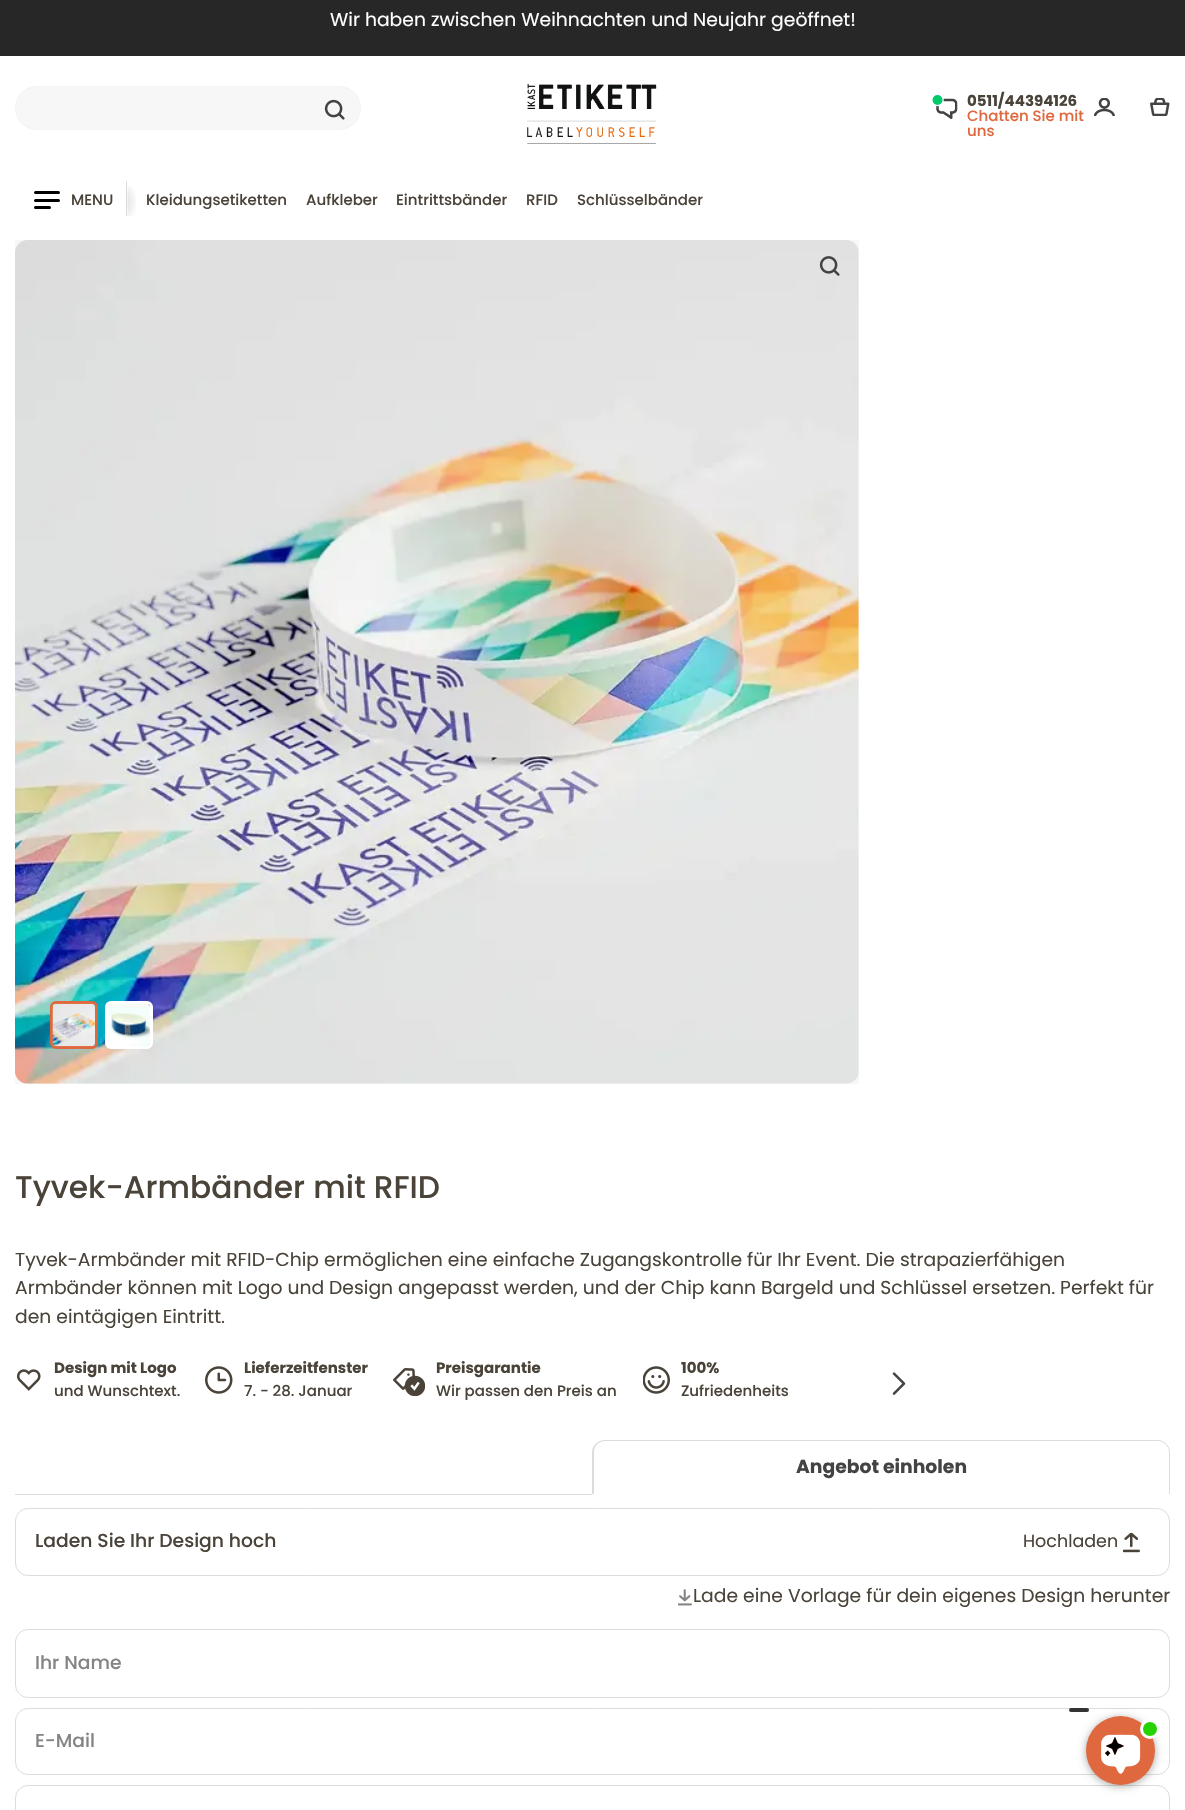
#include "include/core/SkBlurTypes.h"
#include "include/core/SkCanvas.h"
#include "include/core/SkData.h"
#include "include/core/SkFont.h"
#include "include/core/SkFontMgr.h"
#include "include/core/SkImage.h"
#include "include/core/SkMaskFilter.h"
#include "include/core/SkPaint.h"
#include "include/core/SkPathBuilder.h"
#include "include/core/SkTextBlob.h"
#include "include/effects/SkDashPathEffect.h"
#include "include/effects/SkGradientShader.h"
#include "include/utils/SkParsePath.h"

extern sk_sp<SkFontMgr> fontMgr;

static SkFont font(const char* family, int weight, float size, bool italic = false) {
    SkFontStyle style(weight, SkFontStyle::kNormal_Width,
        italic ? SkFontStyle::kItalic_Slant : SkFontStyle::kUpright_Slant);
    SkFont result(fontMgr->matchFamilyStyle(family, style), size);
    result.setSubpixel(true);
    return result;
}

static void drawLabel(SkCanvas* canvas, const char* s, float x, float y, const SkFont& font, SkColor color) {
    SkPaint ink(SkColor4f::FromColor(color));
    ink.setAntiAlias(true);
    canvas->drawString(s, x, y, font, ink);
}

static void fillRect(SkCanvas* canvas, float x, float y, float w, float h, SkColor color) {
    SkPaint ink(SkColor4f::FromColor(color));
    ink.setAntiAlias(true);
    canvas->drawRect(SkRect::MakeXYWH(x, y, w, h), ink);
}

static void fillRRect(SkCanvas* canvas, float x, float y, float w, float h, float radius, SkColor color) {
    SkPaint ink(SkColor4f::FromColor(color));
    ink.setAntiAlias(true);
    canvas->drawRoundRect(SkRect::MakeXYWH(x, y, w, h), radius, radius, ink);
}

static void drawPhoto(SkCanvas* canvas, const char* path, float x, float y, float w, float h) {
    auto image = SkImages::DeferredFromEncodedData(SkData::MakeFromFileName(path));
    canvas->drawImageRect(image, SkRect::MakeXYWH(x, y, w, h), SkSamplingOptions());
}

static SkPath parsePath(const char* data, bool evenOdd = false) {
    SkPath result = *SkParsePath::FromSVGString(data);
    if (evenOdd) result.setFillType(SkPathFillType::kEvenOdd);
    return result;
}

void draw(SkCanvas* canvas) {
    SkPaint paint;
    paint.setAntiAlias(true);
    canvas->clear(0xFFFFFFFF);
    fillRect(canvas, 0, 0, 1185, 56, 0xFF272727);
    SkFont font1 = font("Poppins", 400, 18.75f);
    drawLabel(canvas, "Wir haben zwischen Weihnachten und Neujahr geöffnet!", 330, 26, font1, 0xFFFFFFFF);
    paint.setColor(0xFFF7F7F7);
    canvas->drawRoundRect(SkRect::MakeXYWH(15.5f, 86.5f, 345, 43), 21.5f, 21.5f, paint);
    paint.setStroke(true);
    paint.setStrokeWidth(1);
    paint.setColor(0xFFF3F3F3);
    canvas->drawRoundRect(SkRect::MakeXYWH(15.5f, 86.5f, 345, 43), 21.5f, 21.5f, paint);
    drawPhoto(canvas, "assets/img1.png", 324, 99, 21, 21);
    drawPhoto(canvas, "assets/img2.png", 527, 83, 130, 61);
    drawPhoto(canvas, "assets/img3.png", 932, 95, 26, 24);
    SkFont font2 = font("Poppins", 700, 15);
    drawLabel(canvas, "0511/44394126", 967, 106, font2, 0xFF4A4339);
    SkFont font3 = font("Poppins", 500, 15);
    drawLabel(canvas, "Chatten Sie mit", 967, 121, font3, 0xFFE0683E);
    drawLabel(canvas, "uns", 967, 136, font3, 0xFFE0683E);
    drawPhoto(canvas, "assets/img4.png", 1094, 98, 21, 18);
    drawPhoto(canvas, "assets/img5.png", 1150, 98, 20, 18);
    fillRRect(canvas, 34, 191, 26, 3, 1.5f, 0xFF000000);
    fillRRect(canvas, 34, 199, 26, 3, 1.5f, 0xFF000000);
    fillRRect(canvas, 34, 206, 17, 3, 1.5f, 0xFF000000);
    drawLabel(canvas, "MENU", 71, 205, font3, 0xFF4A4339);
    drawPhoto(canvas, "assets/img6.png", 127, 186, 9, 30);
    fillRect(canvas, 126, 181, 1, 35, 0xFFDCDCDC);
    drawLabel(canvas, "Kleidungsetiketten", 146, 205, font3, 0xFF4A4339);
    drawLabel(canvas, "Aufkleber", 306, 205, font3, 0xFF4A4339);
    drawLabel(canvas, "Eintrittsbänder", 396, 205, font3, 0xFF4A4339);
    drawLabel(canvas, "RFID", 526, 205, font3, 0xFF4A4339);
    drawLabel(canvas, "Schlüsselbänder", 577, 205, font3, 0xFF4A4339);
    drawPhoto(canvas, "assets/img7.png", 15, 240, 844, 844);
    fillRect(canvas, 15, 240, 844, 844, 0x08000000);
    drawPhoto(canvas, "assets/img8.png", 819, 256, 21, 20);
    paint.setStrokeWidth(3);
    paint.setColor(0xFFE0683E);
    canvas->drawRoundRect(SkRect::MakeXYWH(51.5f, 1002.5f, 45, 45), 4.5f, 4.5f, paint);
    paint.setColor(0xFFFFFFFF);
    canvas->drawRoundRect(SkRect::MakeXYWH(106.5f, 1002.5f, 45, 45), 4.5f, 4.5f, paint);
    drawPhoto(canvas, "assets/img9.png", 52, 1003, 43, 44);
    drawPhoto(canvas, "assets/img10.png", 108, 1004, 42, 42);
    SkFont font4 = font("Poppins", 500, 31.25f);
    drawLabel(canvas, "Tyvek-Armbänder mit RFID", 15, 1198, font4, 0xFF4A4339);
    drawLabel(canvas, "Tyvek-Armbänder mit RFID-Chip ermöglichen eine einfache Zugangskontrolle für Ihr Event. Die strapazierfähigen", 15, 1266, font1, 0xFF4A4339);
    drawLabel(canvas, "Armbänder können mit Logo und Design angepasst werden, und der Chip kann Bargeld und Schlüssel ersetzen. Perfekt für", 15, 1294, font1, 0xFF4A4339);
    drawLabel(canvas, "den eintägigen Eintritt.", 15, 1323, font1, 0xFF4A4339);
    drawPhoto(canvas, "assets/img11.png", 17, 1369, 24, 22);
    drawLabel(canvas, "Design mit Logo", 54, 1373, font2, 0xFF4A4339);
    drawLabel(canvas, "und Wunschtext.", 54, 1396, font3, 0xFF4A4339);
    drawPhoto(canvas, "assets/img12.png", 205, 1366, 28, 28);
    drawLabel(canvas, "Lieferzeitfenster", 244, 1373, font2, 0xFF4A4339);
    drawLabel(canvas, "7. - 28. Januar", 244, 1396, font3, 0xFF4A4339);
    drawPhoto(canvas, "assets/img13.png", 393, 1368, 32, 28);
    drawLabel(canvas, "Preisgarantie", 436, 1373, font2, 0xFF4A4339);
    drawLabel(canvas, "Wir passen den Preis an", 436, 1396, font3, 0xFF4A4339);
    drawPhoto(canvas, "assets/img14.png", 643, 1366, 27, 28);
    drawLabel(canvas, "100%", 681, 1373, font2, 0xFF4A4339);
    drawLabel(canvas, "Zufriedenheits", 681, 1396, font3, 0xFF4A4339);
    drawPhoto(canvas, "assets/img15.png", 892, 1372, 14, 23);
    paint.setStroke(false);
    paint.setColor(0xFFDCDCDC);
    canvas->drawPath(parsePath("M605 1440H1158C1164 1440 1170 1446 1170 1452V1494H592V1452C592 1446 598 1440 605 1440ZM605 1441H1158C1164 1441 1169 1446 1169 1452V1494H594V1452C594 1446 599 1441 605 1441Z", true), paint);
    SkFont font5 = font("Poppins", 700, 18.75f);
    drawLabel(canvas, "Angebot einholen", 796, 1473, font5, 0xFF434343);
    fillRect(canvas, 15, 1494, 577, 1, 0xFFDCDCDC);
    paint.setStroke(true);
    paint.setStrokeWidth(1);
    canvas->drawRoundRect(SkRect::MakeXYWH(15.5f, 1508.5f, 1154, 67), 12.5f, 12.5f, paint);
    SkFont font6 = font("Poppins", 500, 18.75f);
    drawLabel(canvas, "Laden Sie Ihr Design hoch", 35, 1547, font6, 0xFF4A4339);
    SkFont font7 = font("Poppins", 400, 17.5f);
    drawLabel(canvas, "Hochladen", 1023, 1547, font7, 0xFF4A4339);
    drawPhoto(canvas, "assets/img16.png", 1123, 1533, 17, 20);
    drawPhoto(canvas, "assets/img17.png", 678, 1589, 14, 17);
    drawLabel(canvas, "Lade eine Vorlage für dein eigenes Design herunter", 693, 1602, font1, 0xFF4A4339);
    canvas->drawRoundRect(SkRect::MakeXYWH(15.5f, 1629.5f, 1154, 68), 12.5f, 12.5f, paint);
    drawLabel(canvas, "Ihr Name", 35, 1669, font6, 0xFF848484);
    canvas->drawRoundRect(SkRect::MakeXYWH(15.5f, 1708.5f, 1154, 66), 12.5f, 12.5f, paint);
    drawLabel(canvas, "E-Mail", 35, 1747, font6, 0xFF848484);
    canvas->drawRoundRect(SkRect::MakeXYWH(15.5f, 1785.5f, 1154, 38), 12.5f, 12.5f, paint);
    fillRRect(canvas, 1069, 1708, 20, 4, 2, 0xFF333333);
    paint.setStroke(false);
    paint.setColor(0x59000000);
    paint.setMaskFilter(SkMaskFilter::MakeBlur(kNormal_SkBlurStyle, 4.5f));
    canvas->drawRoundRect(SkRect::MakeXYWH(1086, 1718, 69, 68), 34, 34, paint);
    paint.setMaskFilter(nullptr);
    paint.setColor(0xFFE0683E);
    canvas->drawCircle(1120.5f, 1750.5f, 34.5f, paint);
    drawPhoto(canvas, "assets/img18.png", 1101, 1734, 40, 40);
    paint.setColor(0xFF25D300);
    canvas->drawCircle(1150, 1729, 8.5f, paint);
    paint.setStroke(true);
    paint.setStrokeWidth(3);
    paint.setColor(0xFFFFFFFF);
    canvas->drawCircle(1150, 1729, 8.5f, paint);
}
